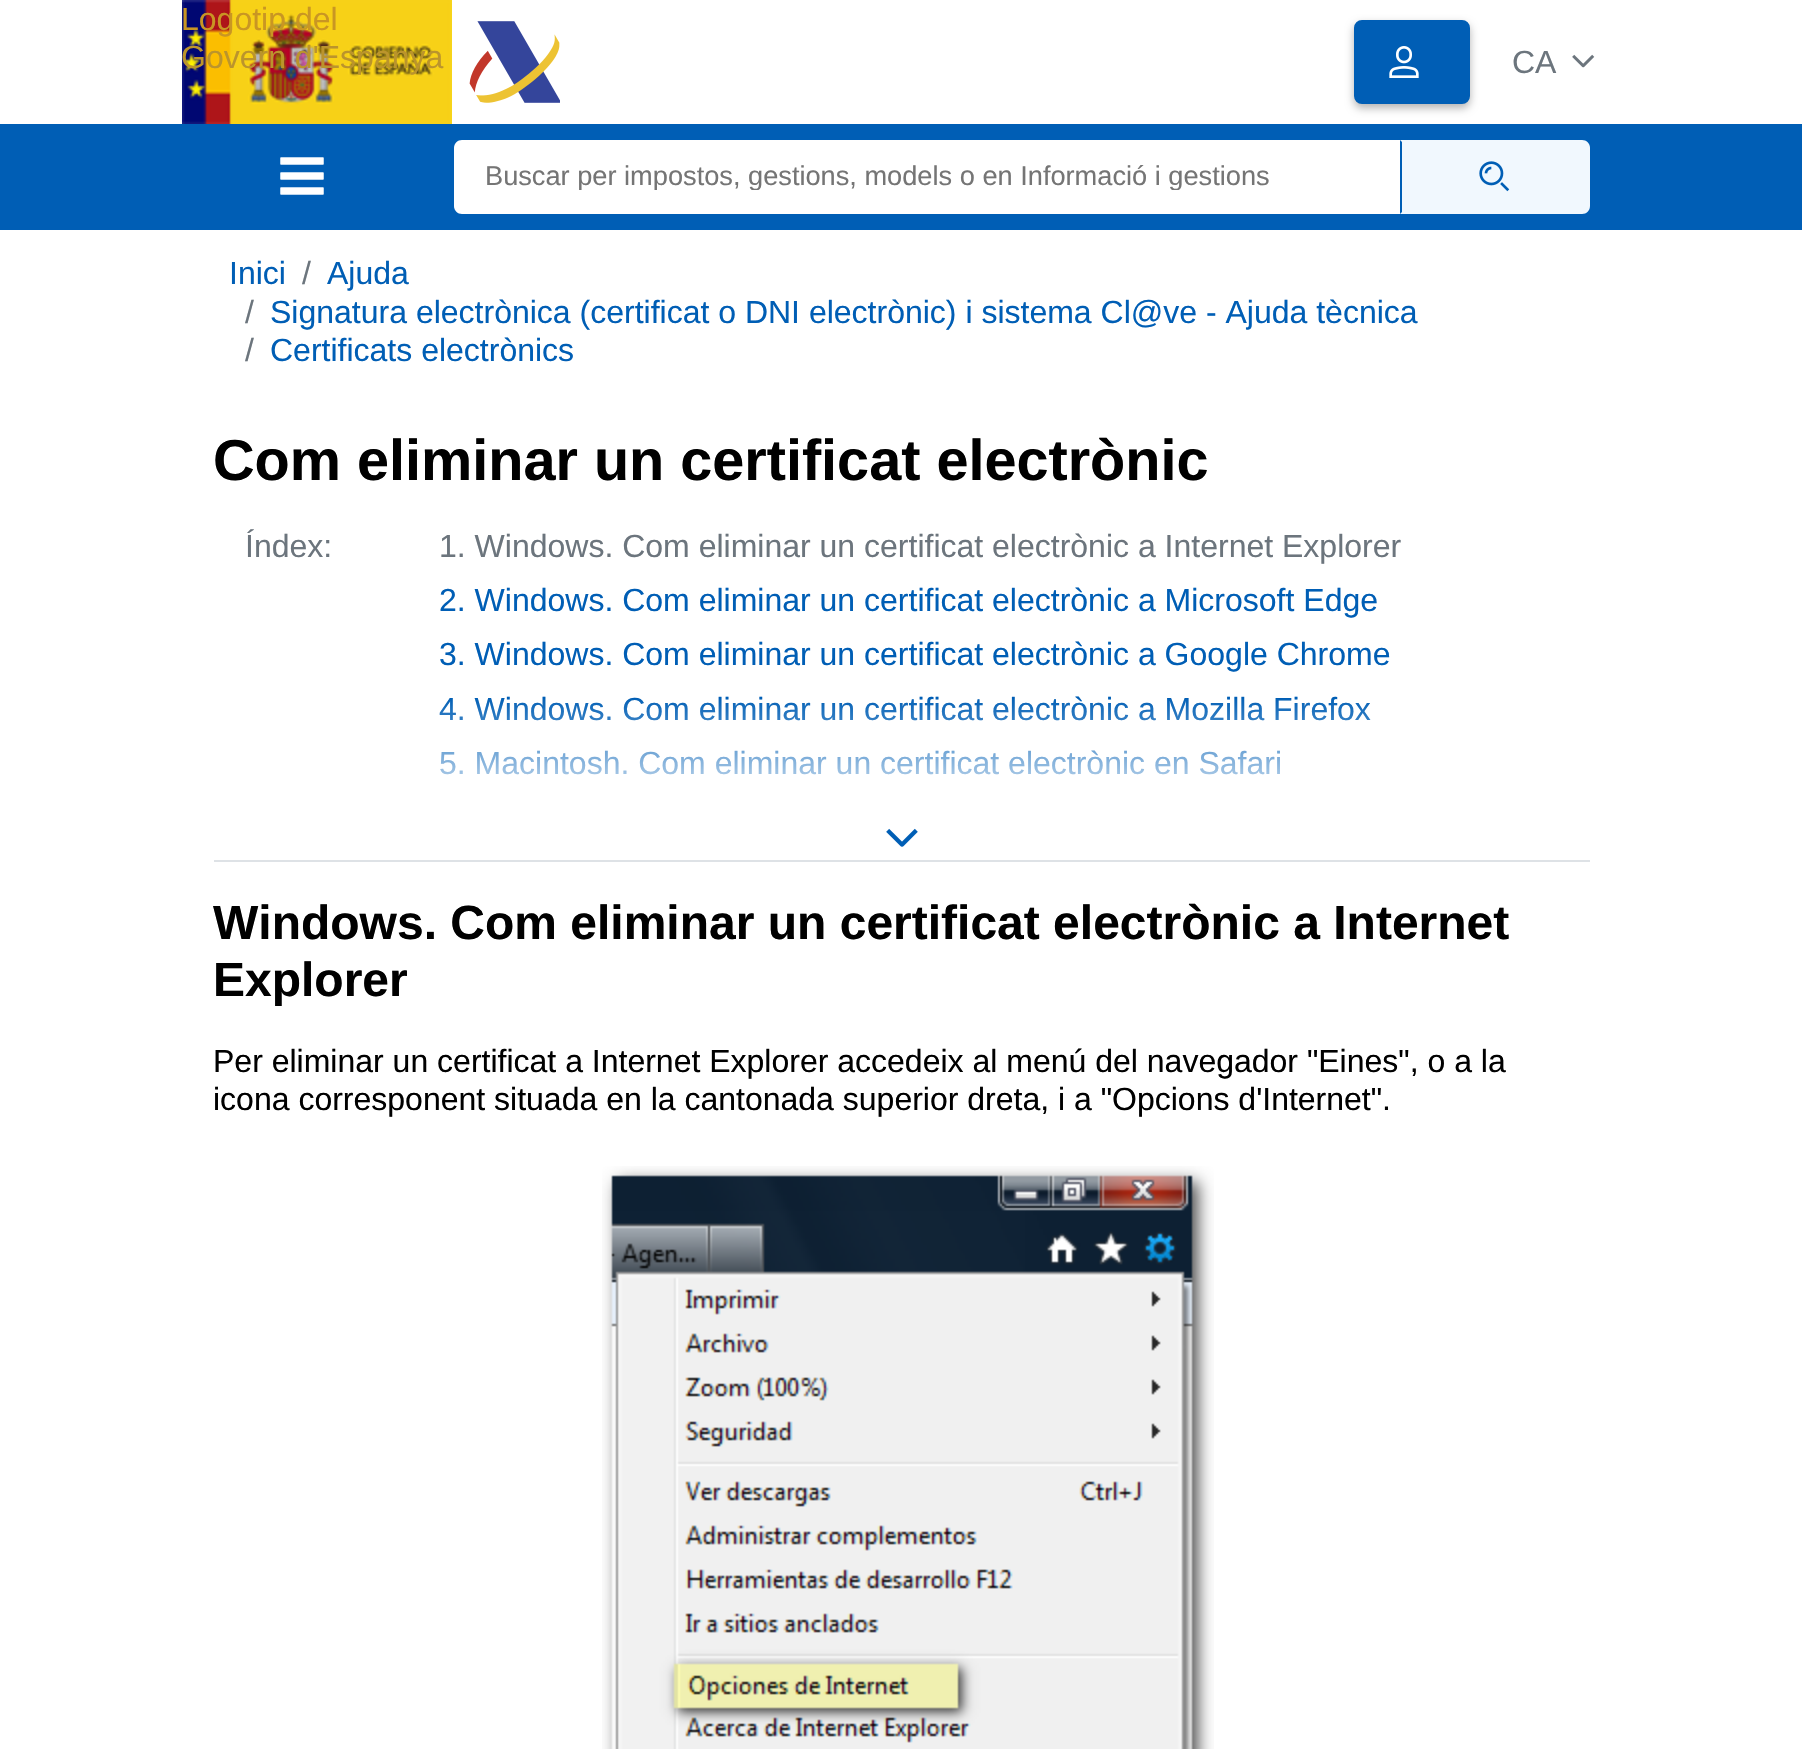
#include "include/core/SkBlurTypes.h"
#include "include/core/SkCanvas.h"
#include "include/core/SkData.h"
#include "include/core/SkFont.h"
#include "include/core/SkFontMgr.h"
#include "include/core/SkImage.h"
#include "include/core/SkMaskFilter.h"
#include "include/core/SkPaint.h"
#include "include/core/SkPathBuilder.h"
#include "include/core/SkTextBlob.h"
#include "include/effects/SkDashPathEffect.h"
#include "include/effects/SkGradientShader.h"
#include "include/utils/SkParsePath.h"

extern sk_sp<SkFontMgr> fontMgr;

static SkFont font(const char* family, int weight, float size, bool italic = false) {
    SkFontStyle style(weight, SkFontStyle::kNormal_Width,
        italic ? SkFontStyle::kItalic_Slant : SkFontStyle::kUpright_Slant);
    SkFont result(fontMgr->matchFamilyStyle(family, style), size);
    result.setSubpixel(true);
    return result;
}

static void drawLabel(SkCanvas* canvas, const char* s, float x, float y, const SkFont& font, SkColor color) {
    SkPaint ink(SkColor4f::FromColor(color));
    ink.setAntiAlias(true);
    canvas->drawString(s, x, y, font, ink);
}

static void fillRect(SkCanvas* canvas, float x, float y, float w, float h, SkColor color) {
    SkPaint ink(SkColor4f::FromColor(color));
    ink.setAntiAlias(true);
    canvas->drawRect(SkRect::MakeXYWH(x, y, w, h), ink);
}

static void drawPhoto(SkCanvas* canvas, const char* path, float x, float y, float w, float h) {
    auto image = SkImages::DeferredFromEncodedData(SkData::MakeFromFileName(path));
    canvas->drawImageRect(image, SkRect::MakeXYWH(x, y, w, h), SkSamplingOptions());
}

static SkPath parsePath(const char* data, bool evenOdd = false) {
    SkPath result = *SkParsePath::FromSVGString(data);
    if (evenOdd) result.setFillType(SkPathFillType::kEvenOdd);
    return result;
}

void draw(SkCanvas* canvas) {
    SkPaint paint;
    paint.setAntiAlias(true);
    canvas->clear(0xFFFFFFFF);
    drawPhoto(canvas, "assets/img1.png", 182, 0, 270, 124);
    SkFont font1 = font("Liberation Sans", 400, 32);
    drawLabel(canvas, "Logotip del", 181, 30, font1, 0xFFC99623);
    drawLabel(canvas, "Govern d'Espanya", 181, 68, font1, 0xFFBB942C);
    drawPhoto(canvas, "assets/img2.png", 469, 21, 91, 82);
    paint.setColor(0x4D000000);
    paint.setMaskFilter(SkMaskFilter::MakeBlur(kNormal_SkBlurStyle, 4));
    canvas->drawRoundRect(SkRect::MakeXYWH(1354, 24, 116, 84), 8, 8, paint);
    paint.setMaskFilter(nullptr);
    paint.setColor(0xFF005EB5);
    canvas->drawRoundRect(SkRect::MakeXYWH(1355, 21, 114, 82), 7, 7, paint);
    paint.setStroke(true);
    paint.setStrokeWidth(2);
    canvas->drawRoundRect(SkRect::MakeXYWH(1355, 21, 114, 82), 7, 7, paint);
    drawPhoto(canvas, "assets/img3.png", 1389, 46, 30, 32);
    drawLabel(canvas, "CA", 1512, 73, font1, 0xFF6C757D);
    drawPhoto(canvas, "assets/img4.png", 1572, 54, 23, 14);
    fillRect(canvas, 0, 124, 1802, 106, 0xFF005EB5);
    drawPhoto(canvas, "assets/img5.png", 280, 157, 44, 38);
    paint.setStroke(false);
    paint.setColor(0xFFFFFFFF);
    canvas->drawPath(parsePath("M462 140H1402V214H462C457.5 214 454 210.5 454 206V148C454 143.5 457.5 140 462 140Z"), paint);
    canvas->save();
    canvas->clipRect(SkRect::MakeXYWH(486, 160, 888, 30));
    SkFont font2 = font("Liberation Sans", 400, 27.2f);
    drawLabel(canvas, "Buscar per impostos, gestions, models o en Informació i gestions", 485, 185, font2, 0xFF757575);
    canvas->restore();
    paint.setColor(0xFFF1F8FE);
    canvas->drawPath(parsePath("M1400 140H1582C1586.5 140 1590 143.5 1590 148V206C1590 210.5 1586.5 214 1582 214H1400Z"), paint);
    paint.setColor(0xFF005EB5);
    canvas->drawPath(parsePath("M1400 140V214L1402 212V142Z"), paint);
    drawPhoto(canvas, "assets/img6.png", 1479, 161, 31, 31);
    drawLabel(canvas, "Inici", 229, 284, font1, 0xFF005EB5);
    drawLabel(canvas, "/", 302, 284, font1, 0xFF6C757D);
    drawLabel(canvas, "Ajuda", 327, 284, font1, 0xFF005EB5);
    drawLabel(canvas, "/", 245, 323, font1, 0xFF6C757D);
    drawLabel(canvas, "Signatura electrònica (certificat o DNI electrònic) i sistema Cl@ve - Ajuda tècnica", 270, 323, font1, 0xFF005EB5);
    drawLabel(canvas, "/", 245, 361, font1, 0xFF6C757D);
    drawLabel(canvas, "Certificats electrònics", 270, 361, font1, 0xFF005EB5);
    SkFont font3 = font("Liberation Sans", 700, 57.6f);
    drawLabel(canvas, "Com eliminar un certificat electrònic", 213, 480, font3, 0xFF000000);
    fillRect(canvas, 214, 860, 1376, 2, 0xFFDEE2E6);
    drawLabel(canvas, "Índex:", 245, 557, font1, 0xFF6C757D);
    drawLabel(canvas, "1. Windows. Com eliminar un certificat electrònic a Internet Explorer", 439, 557, font1, 0xFF6C757D);
    drawLabel(canvas, "2. Windows. Com eliminar un certificat electrònic a Microsoft Edge", 439, 611, font1, 0xFF005EB5);
    drawLabel(canvas, "3. Windows. Com eliminar un certificat electrònic a Google Chrome", 439, 665, font1, 0xFF005EB5);
    drawLabel(canvas, "4. Windows. Com eliminar un certificat electrònic a Mozilla Firefox", 439, 720, font1, 0xFF005EB5);
    drawLabel(canvas, "5. Macintosh. Com eliminar un certificat electrònic en Safari", 439, 774, font1, 0xFF005EB5);
    {
        const SkColor colors[] = {0xFFFFFFFF, 0x00FFFFFF};
        const float stops[] = {0.25f, 1};
        const SkPoint ends[] = {{902, 862}, {902, 696}};
        paint.setShader(SkGradientShader::MakeLinear(ends, colors, stops, 2, SkTileMode::kClamp));
        paint.setAlpha(255);
    }
    canvas->drawRect(SkRect::MakeXYWH(439, 699, 931, 76), paint);
    drawPhoto(canvas, "assets/img7.png", 886, 828, 32, 19);
    SkFont font4 = font("Liberation Sans", 700, 48);
    drawLabel(canvas, "Windows. Com eliminar un certificat electrònic a Internet", 213, 939, font4, 0xFF000000);
    drawLabel(canvas, "Explorer", 213, 996, font4, 0xFF000000);
    drawLabel(canvas, "Per eliminar un certificat a Internet Explorer accedeix al menú del navegador \"Eines\", o a la", 213, 1072, font1, 0xFF000000);
    drawLabel(canvas, "icona corresponent situada en la cantonada superior dreta, i a \"Opcions d'Internet\".", 213, 1110, font1, 0xFF000000);
    drawPhoto(canvas, "assets/img8.png", 602, 1166, 612, 583);
}
